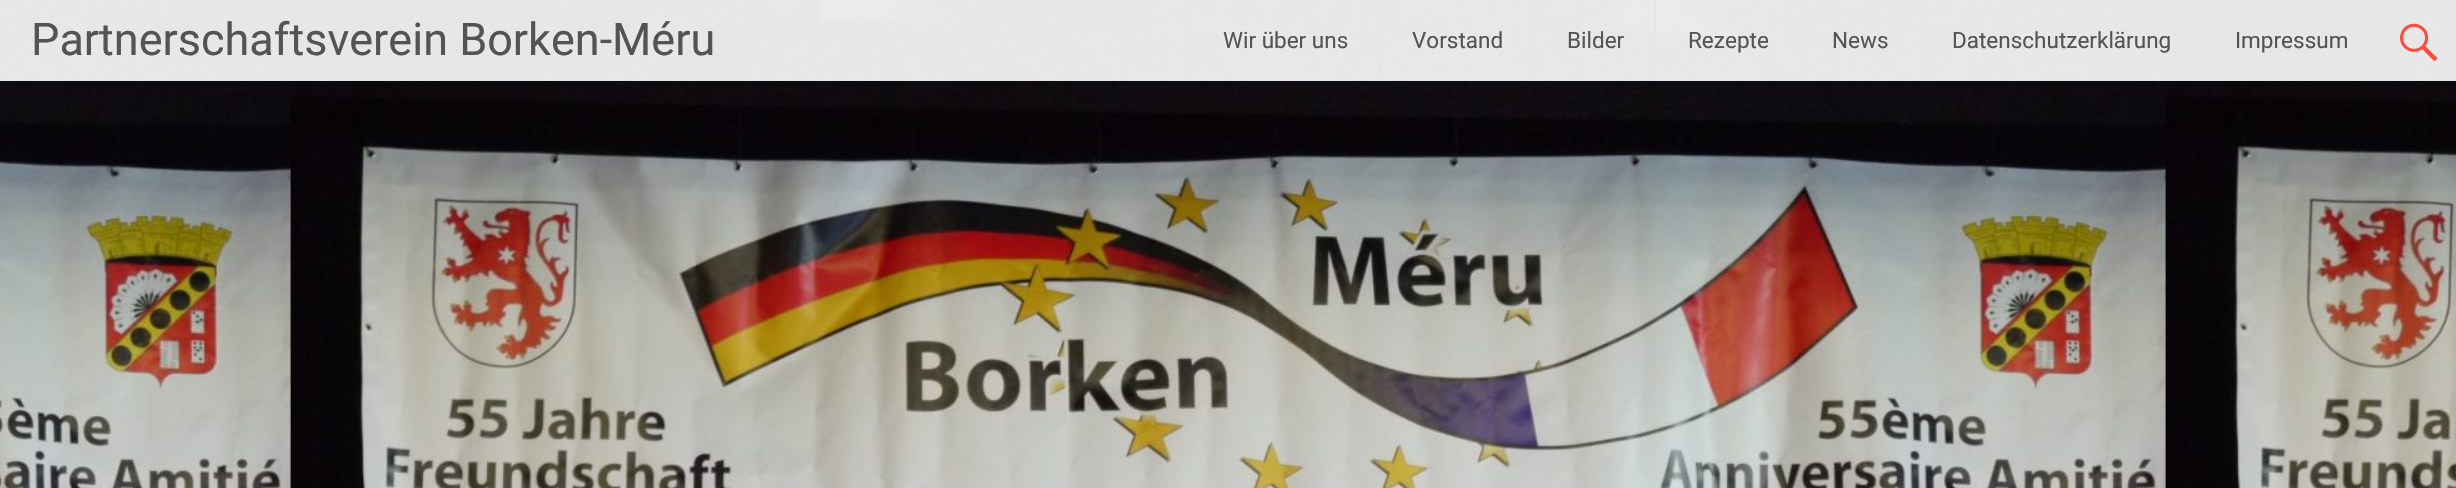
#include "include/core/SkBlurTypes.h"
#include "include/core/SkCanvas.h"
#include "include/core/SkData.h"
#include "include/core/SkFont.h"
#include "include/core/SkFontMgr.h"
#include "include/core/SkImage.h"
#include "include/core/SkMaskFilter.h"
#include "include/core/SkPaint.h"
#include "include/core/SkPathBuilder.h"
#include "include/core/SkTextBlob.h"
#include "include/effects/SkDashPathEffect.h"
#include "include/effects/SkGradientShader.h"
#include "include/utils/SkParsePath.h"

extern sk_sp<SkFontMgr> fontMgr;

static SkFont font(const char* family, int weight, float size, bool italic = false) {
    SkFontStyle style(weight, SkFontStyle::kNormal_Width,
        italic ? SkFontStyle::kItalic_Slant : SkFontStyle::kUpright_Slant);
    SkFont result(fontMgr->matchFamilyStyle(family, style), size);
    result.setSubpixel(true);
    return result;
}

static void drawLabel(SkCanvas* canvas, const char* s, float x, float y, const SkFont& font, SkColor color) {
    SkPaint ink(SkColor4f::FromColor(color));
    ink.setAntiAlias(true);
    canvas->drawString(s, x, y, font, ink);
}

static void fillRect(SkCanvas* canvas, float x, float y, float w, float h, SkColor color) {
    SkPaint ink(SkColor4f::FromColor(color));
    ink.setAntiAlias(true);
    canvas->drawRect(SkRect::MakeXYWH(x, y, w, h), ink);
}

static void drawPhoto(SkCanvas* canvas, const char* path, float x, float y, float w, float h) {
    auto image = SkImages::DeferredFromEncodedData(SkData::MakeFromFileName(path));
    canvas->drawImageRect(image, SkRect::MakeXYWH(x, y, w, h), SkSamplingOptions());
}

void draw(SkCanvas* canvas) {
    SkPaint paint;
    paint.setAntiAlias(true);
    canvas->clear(0xFFFFFFFF);
    drawPhoto(canvas, "assets/img1.png", 0, 0, 2456, 488);
    fillRect(canvas, 0, 0, 2456, 80, 0xE6FFFFFF);
    fillRect(canvas, 0, 80, 2456, 1, 0xFFE2E4E6);
    SkFont font1 = font("Roboto", 400, 45);
    drawLabel(canvas, "Partnerschaftsverein Borken-Méru", 31, 55, font1, 0xFF545454);
    fillRect(canvas, 1190, 0, 1, 80, 0xFFE2E4E6);
    SkFont font2 = font("Roboto", 400, 22.5f);
    drawLabel(canvas, "Wir über uns", 1223, 48, font2, 0xFF545454);
    fillRect(canvas, 1379, 0, 1, 80, 0xFFE2E4E6);
    drawLabel(canvas, "Vorstand", 1412, 48, font2, 0xFF545454);
    fillRect(canvas, 1534, 0, 1, 80, 0xFFE2E4E6);
    drawLabel(canvas, "Bilder", 1567, 48, font2, 0xFF545454);
    fillRect(canvas, 1655, 0, 1, 80, 0xE6E1E4E6);
    drawLabel(canvas, "Rezepte", 1688, 48, font2, 0xFF545454);
    fillRect(canvas, 1800, 0, 1, 80, 0xFFE2E4E6);
    drawLabel(canvas, "News", 1832, 48, font2, 0xFF545454);
    fillRect(canvas, 1920, 0, 1, 80, 0xFFE2E4E6);
    drawLabel(canvas, "Datenschutzerklärung", 1952, 48, font2, 0xFF545454);
    fillRect(canvas, 2203, 0, 1, 80, 0xFFE2E4E6);
    drawLabel(canvas, "Impressum", 2235, 48, font2, 0xFF545454);
    fillRect(canvas, 2380, 0, 1, 80, 0xFFE2E4E6);
    drawPhoto(canvas, "assets/img2.png", 2400, 23, 38, 39);
}
